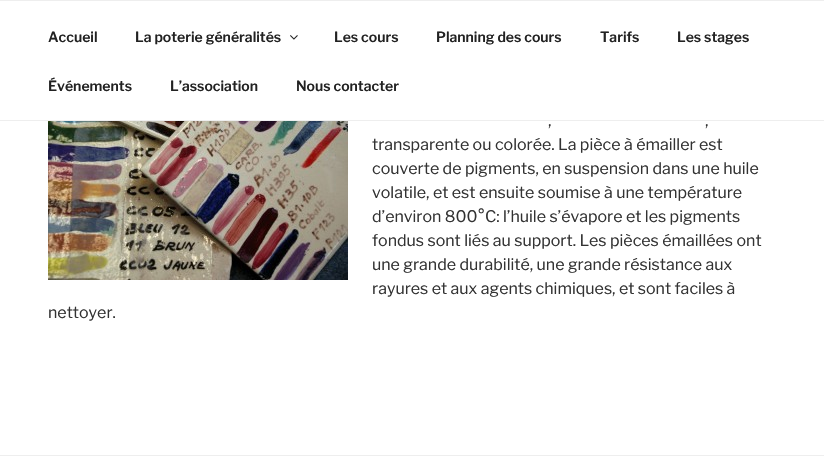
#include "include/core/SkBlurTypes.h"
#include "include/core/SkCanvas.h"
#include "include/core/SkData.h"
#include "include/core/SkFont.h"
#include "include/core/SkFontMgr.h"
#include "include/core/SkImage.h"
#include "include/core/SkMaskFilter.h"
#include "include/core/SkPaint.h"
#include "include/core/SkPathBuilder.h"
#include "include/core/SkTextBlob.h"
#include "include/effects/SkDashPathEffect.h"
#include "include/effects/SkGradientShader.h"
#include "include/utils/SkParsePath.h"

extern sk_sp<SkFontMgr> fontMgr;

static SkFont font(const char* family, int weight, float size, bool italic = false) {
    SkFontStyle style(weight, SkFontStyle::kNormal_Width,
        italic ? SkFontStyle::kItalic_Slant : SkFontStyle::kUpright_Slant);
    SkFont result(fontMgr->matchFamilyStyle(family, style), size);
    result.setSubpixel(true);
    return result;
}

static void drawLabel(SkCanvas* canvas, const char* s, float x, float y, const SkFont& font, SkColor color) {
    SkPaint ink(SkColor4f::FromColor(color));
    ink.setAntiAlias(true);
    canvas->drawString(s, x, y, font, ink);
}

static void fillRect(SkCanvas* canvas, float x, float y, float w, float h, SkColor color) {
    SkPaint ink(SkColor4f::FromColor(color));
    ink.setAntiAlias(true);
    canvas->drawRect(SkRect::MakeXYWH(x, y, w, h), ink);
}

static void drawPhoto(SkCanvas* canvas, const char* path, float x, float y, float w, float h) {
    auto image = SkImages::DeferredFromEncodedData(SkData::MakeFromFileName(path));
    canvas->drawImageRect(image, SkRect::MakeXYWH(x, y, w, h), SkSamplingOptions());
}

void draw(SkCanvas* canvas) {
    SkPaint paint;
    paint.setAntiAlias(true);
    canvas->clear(0xFFFFFFFF);
    fillRect(canvas, 0, 0, 824, 1, 0xFFEEEEEE);
    fillRect(canvas, 0, 120, 824, 1, 0xFFEEEEEE);
    SkFont font1 = font("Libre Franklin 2", 100, 14);
    drawLabel(canvas, "Accueil", 48, 42, font1, 0xFF222222);
    drawLabel(canvas, "La poterie généralités", 135, 42, font1, 0xFF222222);
    drawPhoto(canvas, "assets/img1.png", 290, 35, 8, 5);
    drawLabel(canvas, "Les cours", 334, 42, font1, 0xFF222222);
    drawLabel(canvas, "Planning des cours", 436, 42, font1, 0xFF222222);
    drawLabel(canvas, "Tarifs", 600, 42, font1, 0xFF222222);
    drawLabel(canvas, "Les stages", 677, 42, font1, 0xFF222222);
    drawLabel(canvas, "Événements", 48, 91, font1, 0xFF222222);
    drawLabel(canvas, "L’association", 170, 91, font1, 0xFF222222);
    drawLabel(canvas, "Nous contacter", 296, 91, font1, 0xFF222222);
    drawPhoto(canvas, "assets/img2.png", 48, 121, 300, 159);
    SkFont font2 = font("Libre Franklin", 100, 16);
    drawLabel(canvas, ",", 548, 126, font2, 0xFF333333);
    drawLabel(canvas, ",", 705, 126, font2, 0xFF333333);
    drawLabel(canvas, "transparente ou colorée. La pièce à émailler est", 372, 150, font2, 0xFF333333);
    drawLabel(canvas, "couverte de pigments, en suspension dans une huile", 372, 174, font2, 0xFF333333);
    drawLabel(canvas, "volatile, et est ensuite soumise à une température", 372, 198, font2, 0xFF333333);
    drawLabel(canvas, "d’environ 800°C: l’huile s’évapore et les pigments", 372, 222, font2, 0xFF333333);
    drawLabel(canvas, "fondus sont liés au support. Les pièces émaillées ont", 372, 246, font2, 0xFF333333);
    drawLabel(canvas, "une grande durabilité, une grande résistance aux", 372, 270, font2, 0xFF333333);
    drawLabel(canvas, "rayures et aux agents chimiques, et sont faciles à", 372, 294, font2, 0xFF333333);
    drawLabel(canvas, "nettoyer.", 48, 318, font2, 0xFF333333);
    fillRect(canvas, 0, 455, 824, 1, 0xFFEEEEEE);
}
